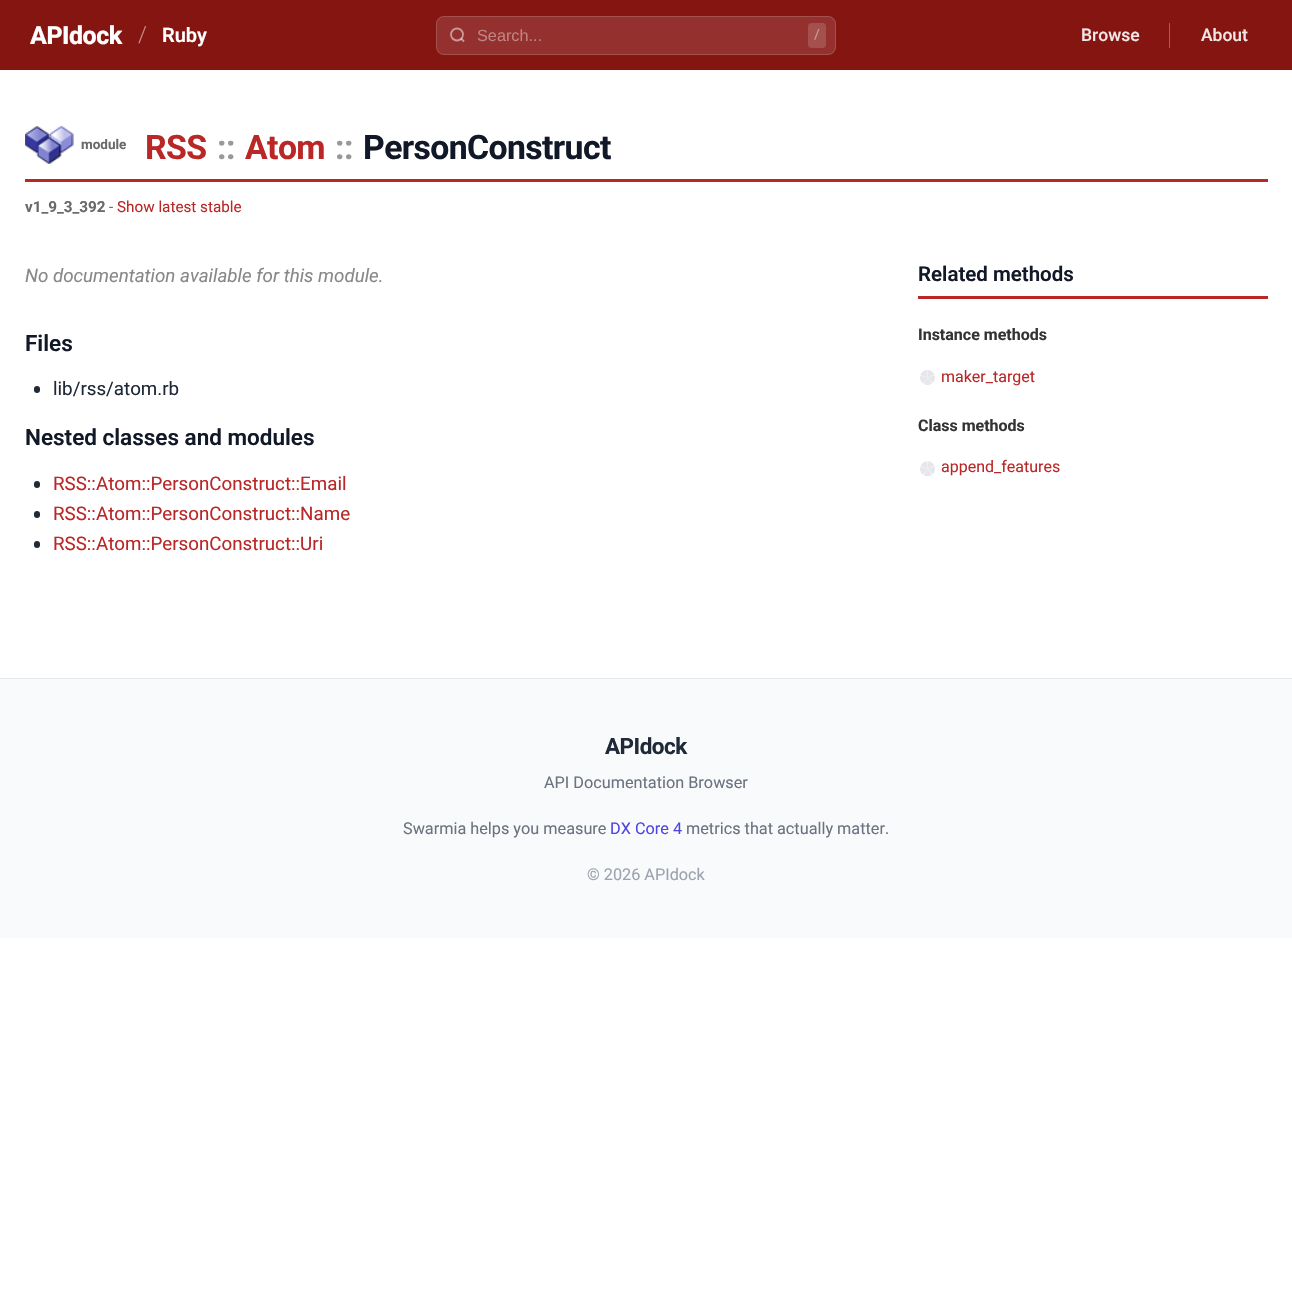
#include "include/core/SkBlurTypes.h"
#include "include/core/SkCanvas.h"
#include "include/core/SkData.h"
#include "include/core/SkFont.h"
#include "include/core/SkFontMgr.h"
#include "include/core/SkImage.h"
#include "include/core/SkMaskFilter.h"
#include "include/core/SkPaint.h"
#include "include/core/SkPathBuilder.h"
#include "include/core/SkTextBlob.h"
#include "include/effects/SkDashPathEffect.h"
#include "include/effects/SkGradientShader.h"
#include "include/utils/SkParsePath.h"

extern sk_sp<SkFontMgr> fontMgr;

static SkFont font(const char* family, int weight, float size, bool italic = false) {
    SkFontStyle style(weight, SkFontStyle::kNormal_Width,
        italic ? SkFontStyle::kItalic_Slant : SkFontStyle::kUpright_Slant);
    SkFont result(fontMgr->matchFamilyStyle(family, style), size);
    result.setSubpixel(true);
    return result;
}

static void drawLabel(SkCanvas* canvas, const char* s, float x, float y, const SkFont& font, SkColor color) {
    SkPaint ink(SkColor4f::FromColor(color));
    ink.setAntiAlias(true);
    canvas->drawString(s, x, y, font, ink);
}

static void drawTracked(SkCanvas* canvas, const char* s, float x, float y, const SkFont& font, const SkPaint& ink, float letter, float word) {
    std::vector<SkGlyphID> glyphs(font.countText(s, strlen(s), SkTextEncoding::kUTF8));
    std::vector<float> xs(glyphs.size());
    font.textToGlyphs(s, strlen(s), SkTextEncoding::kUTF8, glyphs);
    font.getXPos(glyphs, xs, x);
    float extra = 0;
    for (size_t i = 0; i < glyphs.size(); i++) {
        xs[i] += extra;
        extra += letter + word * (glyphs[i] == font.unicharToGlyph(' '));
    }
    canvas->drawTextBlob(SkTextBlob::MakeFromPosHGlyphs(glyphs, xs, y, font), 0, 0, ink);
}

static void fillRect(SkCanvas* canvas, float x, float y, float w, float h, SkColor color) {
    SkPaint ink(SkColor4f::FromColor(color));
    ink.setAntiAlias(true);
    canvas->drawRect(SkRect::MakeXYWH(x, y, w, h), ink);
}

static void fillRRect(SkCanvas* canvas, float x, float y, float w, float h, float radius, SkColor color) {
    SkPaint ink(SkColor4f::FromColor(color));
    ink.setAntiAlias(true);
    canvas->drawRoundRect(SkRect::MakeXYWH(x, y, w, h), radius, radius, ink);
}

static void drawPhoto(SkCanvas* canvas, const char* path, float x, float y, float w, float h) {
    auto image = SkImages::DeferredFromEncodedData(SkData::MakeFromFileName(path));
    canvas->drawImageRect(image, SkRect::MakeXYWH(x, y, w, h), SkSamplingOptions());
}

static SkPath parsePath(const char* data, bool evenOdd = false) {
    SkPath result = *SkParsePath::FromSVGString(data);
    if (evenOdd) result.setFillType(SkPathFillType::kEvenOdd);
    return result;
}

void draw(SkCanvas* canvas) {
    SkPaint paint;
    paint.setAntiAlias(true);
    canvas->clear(0xFFFFFFFF);
    fillRect(canvas, 0, 0, 1292, 70, 0xFF851511);
    SkFont font1 = font("Roboto", 800, 25);
    paint.setColor(0xFFFFFFFF);
    drawTracked(canvas, "APIdock", 30, 44, font1, paint, -0.5f, 0);
    SkFont font2 = font("Roboto", 300, 22.5f);
    drawLabel(canvas, "/", 138, 42, font2, 0xFFC28A88);
    SkFont font3 = font("Roboto", 600, 20);
    drawLabel(canvas, "Ruby", 162, 42, font3, 0xFFFFFFFF);
    fillRRect(canvas, 436, 16, 400, 39, 8, 0xFF94312E);
    paint.setStroke(true);
    paint.setStrokeWidth(1);
    paint.setColor(0x26FFFFFF);
    canvas->drawRoundRect(SkRect::MakeXYWH(436.5f, 16.5f, 399, 38), 7.5f, 7.5f, paint);
    paint.setStrokeWidth(1.8f);
    paint.setColor(0xFFCA9897);
    canvas->drawCircle(457, 34.5f, 6, paint);
    paint.setColor(0x80FFFFFF);
    canvas->drawPath(parsePath("M464 41.5L461 38.5"), paint);
    SkFont font4 = font("Liberation Sans", 400, 16.25f);
    drawLabel(canvas, "Search...", 477, 41, font4, 0xFFBF8382);
    fillRRect(canvas, 808, 23, 18, 25, 4, 0xFFA4504D);
    SkFont font5 = font("Roboto", 400, 14);
    drawLabel(canvas, "/", 814, 39, font5, 0xFFCD9F9D);
    SkFont font6 = font("Roboto", 500, 17.5f);
    drawLabel(canvas, "Browse", 1081, 41, font6, 0xFFF3E8E7);
    fillRect(canvas, 1169, 23, 1, 25, 0xFFAA5B58);
    drawLabel(canvas, "About", 1201, 41, font6, 0xFFF3E8E7);
    fillRect(canvas, 25, 179, 1243, 3, 0xFFBA2727);
    drawPhoto(canvas, "assets/img1.png", 25, 126, 49, 38);
    SkFont font7 = font("Roboto", 700, 13.5f);
    drawLabel(canvas, "module", 81, 149, font7, 0xFF696969);
    SkFont font8 = font("Roboto", 700, 33.75f);
    paint.setStroke(false);
    paint.setColor(0xFFBA2727);
    drawTracked(canvas, "RSS", 145, 159, font8, paint, -0.6f, 0);
    paint.setColor(0xFF999999);
    drawTracked(canvas, "::", 217, 159, font8, paint, -0.6f, 0);
    paint.setColor(0xFFBA2727);
    drawTracked(canvas, "Atom", 245, 159, font8, paint, -0.6f, 0);
    paint.setColor(0xFF999999);
    drawTracked(canvas, "::", 335, 159, font8, paint, -0.6f, 0);
    paint.setColor(0xFF111827);
    drawTracked(canvas, "PersonConstruct", 363, 159, font8, paint, -0.6f, 0);
    SkFont font9 = font("Roboto", 700, 15.25f);
    drawLabel(canvas, "v1_9_3_392", 25, 212, font9, 0xFF696969);
    SkFont font10 = font("Roboto", 400, 15.25f);
    drawLabel(canvas, "-", 109, 212, font10, 0xFF696969);
    drawLabel(canvas, "Show latest stable", 117, 212, font10, 0xFFBA2727);
    SkFont font11 = font("Roboto", 400, 18.75f, true);
    drawLabel(canvas, "No documentation available for this module.", 25, 282, font11, 0xFF888888);
    SkFont font12 = font("Roboto", 600, 22.5f);
    drawLabel(canvas, "Files", 25, 351, font12, 0xFF111827);
    fillRRect(canvas, 34, 386, 6, 7, 3, 0xFF1F2937);
    SkFont font13 = font("Roboto", 400, 18.75f);
    drawLabel(canvas, "lib/rss/atom.rb", 53, 395, font13, 0xFF1F2937);
    drawLabel(canvas, "Nested classes and modules", 25, 445, font12, 0xFF111827);
    fillRRect(canvas, 34, 481, 6, 7, 3, 0xFF1F2937);
    drawLabel(canvas, "RSS::Atom::PersonConstruct::Email", 53, 490, font13, 0xFFBA2727);
    fillRRect(canvas, 34, 511, 6, 7, 3, 0xFF1F2937);
    drawLabel(canvas, "RSS::Atom::PersonConstruct::Name", 53, 520, font13, 0xFFBA2727);
    fillRRect(canvas, 34, 541, 6, 7, 3, 0xFF1F2937);
    drawLabel(canvas, "RSS::Atom::PersonConstruct::Uri", 53, 550, font13, 0xFFBA2727);
    fillRect(canvas, 918, 296, 350, 3, 0xFFBA2727);
    SkFont font14 = font("Roboto", 600, 20.5f);
    drawLabel(canvas, "Related methods", 918, 281, font14, 0xFF111827);
    SkFont font15 = font("Roboto", 700, 16);
    drawLabel(canvas, "Instance methods", 918, 340, font15, 0xFF333333);
    drawPhoto(canvas, "assets/img2.png", 920, 370, 15, 15);
    SkFont font16 = font("Roboto", 400, 16);
    drawLabel(canvas, "maker_target", 941, 382, font16, 0xFFBA2727);
    drawLabel(canvas, "Class methods", 918, 431, font15, 0xFF333333);
    drawPhoto(canvas, "assets/img3.png", 920, 461, 15, 16);
    drawLabel(canvas, "append_features", 941, 472, font16, 0xFFBA2727);
    fillRect(canvas, 0, 679, 1292, 259, 0xFFF9FAFB);
    fillRect(canvas, 0, 678, 1292, 1, 0xFFE5E7EB);
    SkFont font17 = font("Roboto", 700, 22.5f);
    paint.setColor(0xFF1F2937);
    drawTracked(canvas, "APIdock", 605, 754, font17, paint, -0.5f, 0);
    SkFont font18 = font("Roboto", 400, 16.25f);
    drawLabel(canvas, "API Documentation Browser", 544, 788, font18, 0xFF6B7280);
    drawLabel(canvas, "Swarmia helps you measure", 403, 834, font18, 0xFF6B7280);
    drawLabel(canvas, "DX Core 4", 610, 834, font18, 0xFF4F46E5);
    drawLabel(canvas, "metrics that actually matter.", 686, 834, font18, 0xFF6B7280);
    drawLabel(canvas, "© 2026 APIdock", 587, 880, font18, 0xFF9CA3AF);
}
